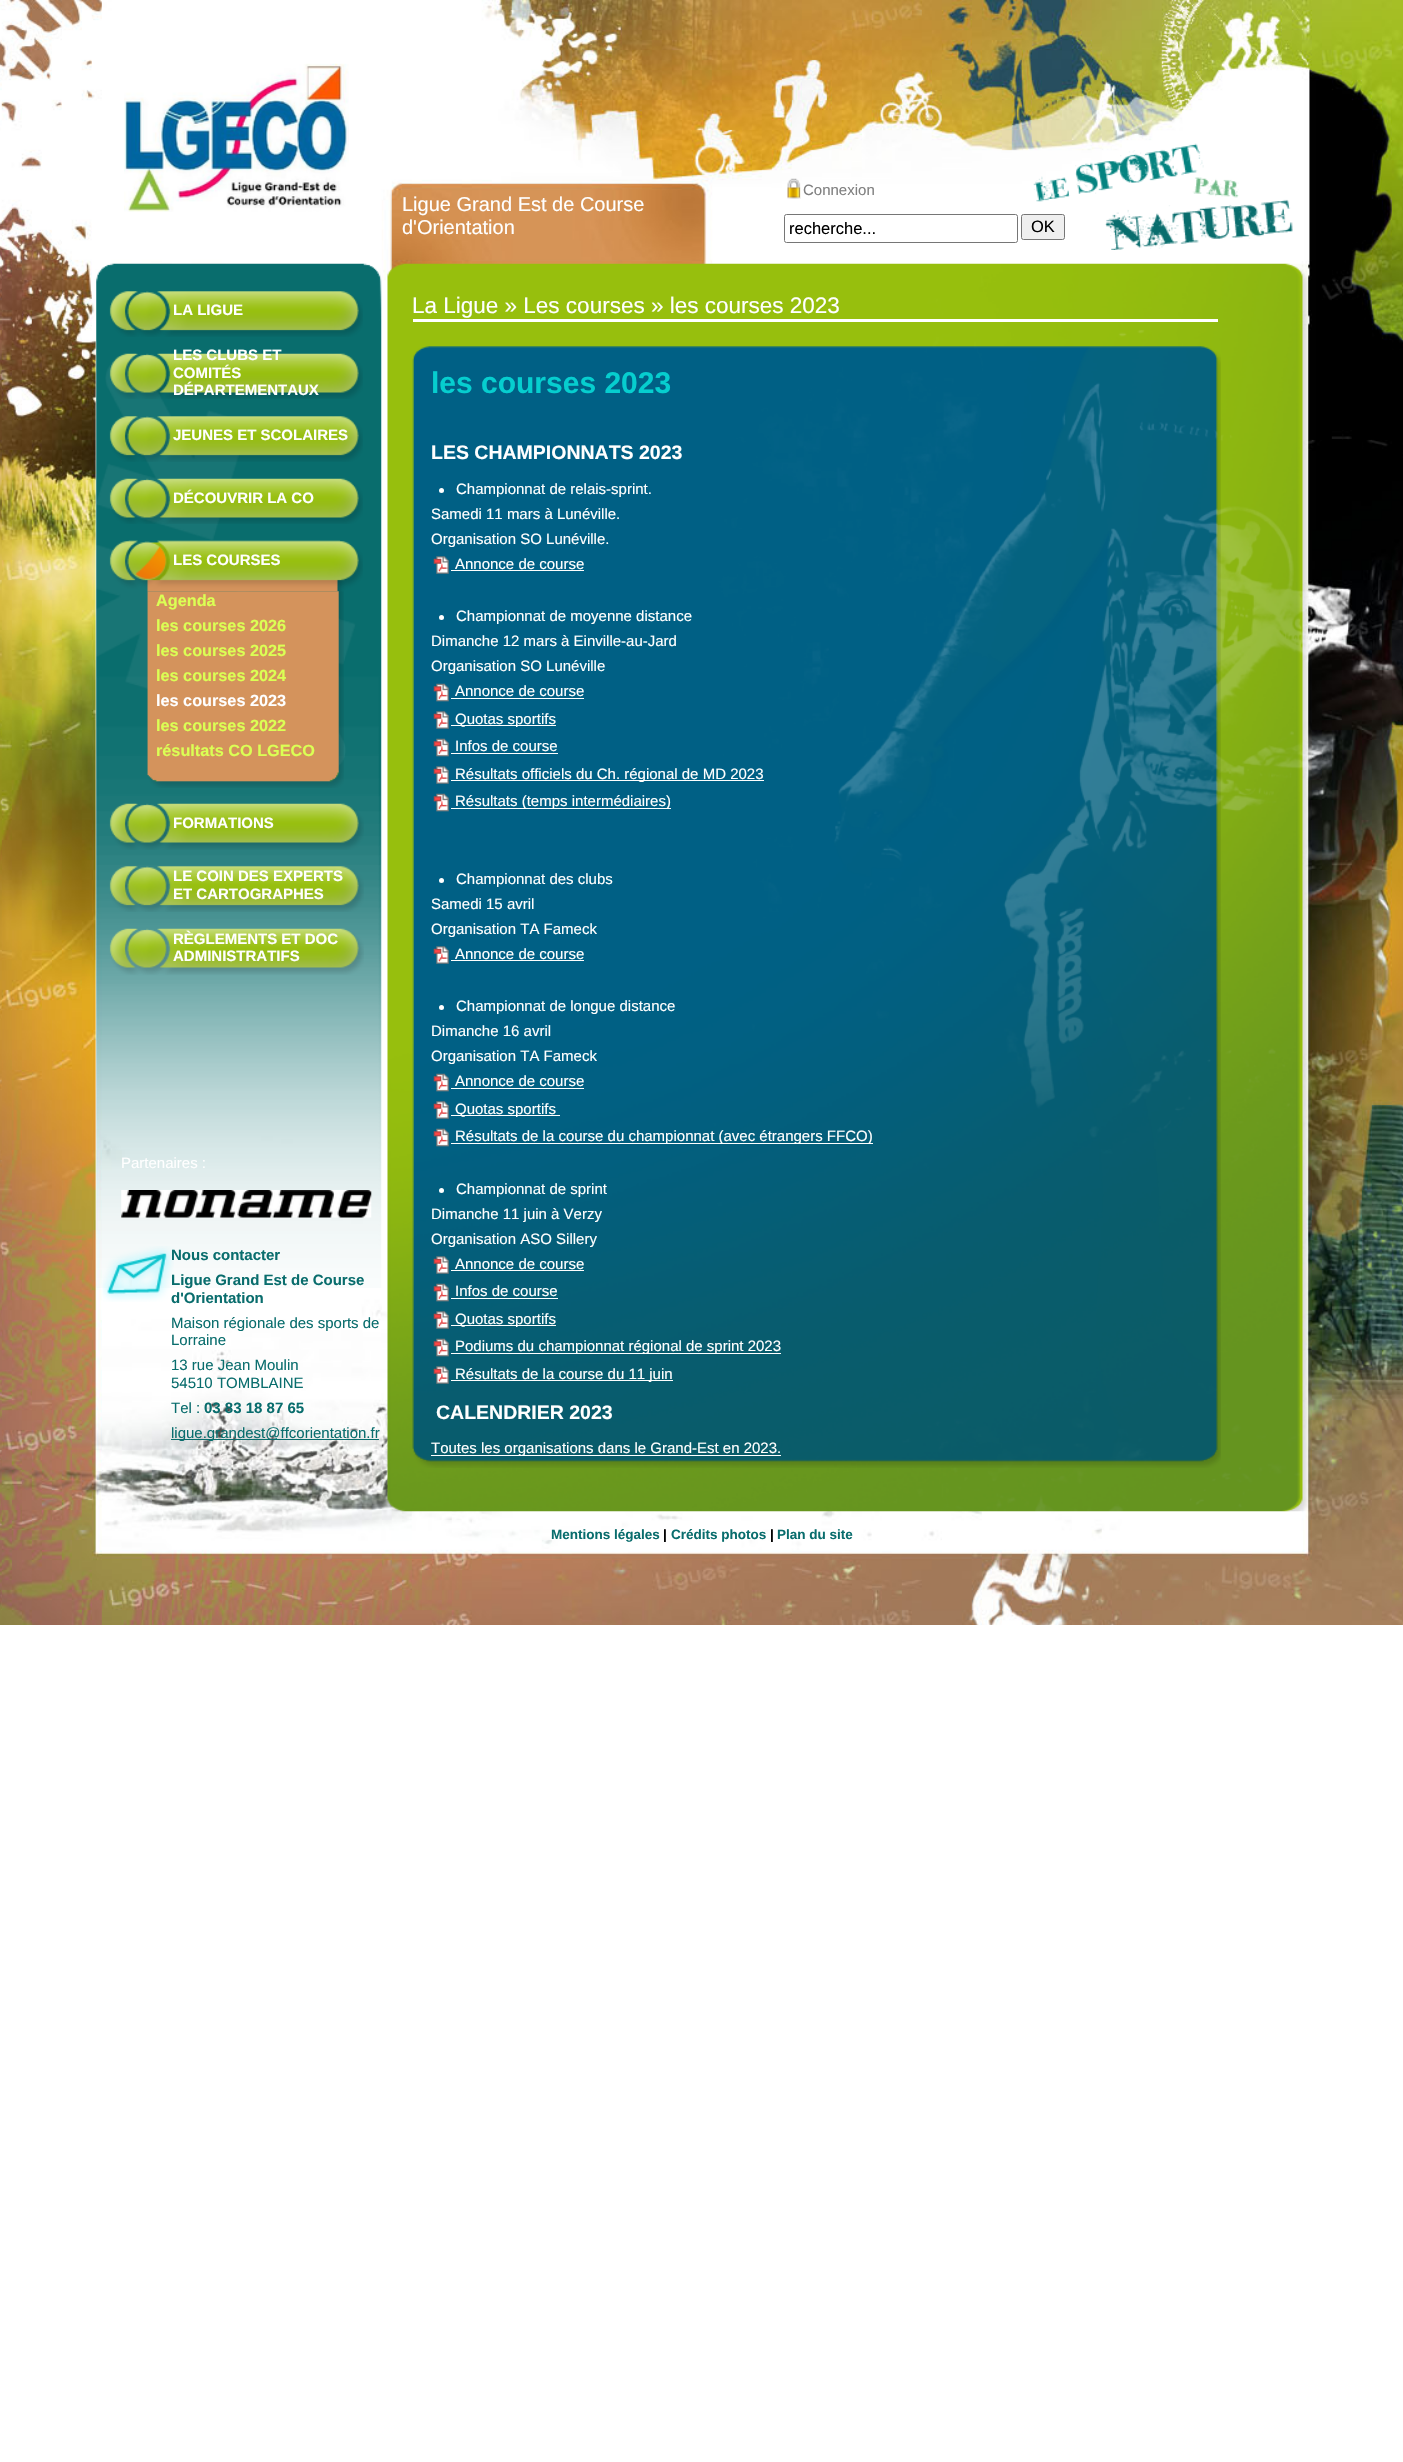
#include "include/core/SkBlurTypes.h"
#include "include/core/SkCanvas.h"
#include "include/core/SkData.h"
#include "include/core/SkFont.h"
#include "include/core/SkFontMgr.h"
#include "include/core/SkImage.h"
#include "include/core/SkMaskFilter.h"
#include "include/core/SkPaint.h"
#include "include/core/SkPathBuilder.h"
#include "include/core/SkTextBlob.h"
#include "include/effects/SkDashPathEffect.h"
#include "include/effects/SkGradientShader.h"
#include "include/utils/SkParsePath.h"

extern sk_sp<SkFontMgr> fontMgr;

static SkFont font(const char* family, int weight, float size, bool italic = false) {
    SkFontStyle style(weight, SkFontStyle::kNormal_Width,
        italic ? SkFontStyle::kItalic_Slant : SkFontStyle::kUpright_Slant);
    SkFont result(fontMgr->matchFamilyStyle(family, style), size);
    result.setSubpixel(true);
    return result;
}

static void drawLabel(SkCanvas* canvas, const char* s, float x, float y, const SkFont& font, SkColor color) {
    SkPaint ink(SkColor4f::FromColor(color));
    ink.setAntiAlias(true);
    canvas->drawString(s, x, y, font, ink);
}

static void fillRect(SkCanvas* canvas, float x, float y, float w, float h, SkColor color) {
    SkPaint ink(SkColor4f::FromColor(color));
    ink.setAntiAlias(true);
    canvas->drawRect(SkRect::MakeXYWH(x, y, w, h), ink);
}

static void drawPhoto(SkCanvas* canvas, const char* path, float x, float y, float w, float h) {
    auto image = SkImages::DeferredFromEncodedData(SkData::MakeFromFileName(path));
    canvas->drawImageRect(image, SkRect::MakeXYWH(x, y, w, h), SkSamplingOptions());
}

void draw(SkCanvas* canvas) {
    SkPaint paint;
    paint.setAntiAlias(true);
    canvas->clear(0xFFFFFFFF);
    drawPhoto(canvas, "assets/img1.png", 0, 0, 1403, 1625);
    drawPhoto(canvas, "assets/img2.png", 124, 63, 225, 149);
    drawPhoto(canvas, "assets/img3.png", 787, 178, 14, 21);
    SkFont font1 = font("Liberation Sans", 400, 15);
    drawLabel(canvas, "Connexion", 803, 195, font1, 0xFF808080);
    paint.setColor(0xFFEFEFEF);
    canvas->drawRoundRect(SkRect::MakeXYWH(1021.5f, 214.5f, 43, 25), 2, 2, paint);
    paint.setStroke(true);
    paint.setStrokeWidth(1);
    paint.setColor(0xFF767676);
    canvas->drawRoundRect(SkRect::MakeXYWH(1021.5f, 214.5f, 43, 25), 2, 2, paint);
    SkFont font2 = font("Liberation Sans", 400, 16.5f);
    drawLabel(canvas, "OK", 1031, 232, font2, 0xFF000000);
    drawPhoto(canvas, "assets/img4.png", 1033, 143, 260, 107);
    SkFont font3 = font("Liberation Sans", 400, 20);
    drawLabel(canvas, "Ligue Grand Est de Course", 402, 211, font3, 0xFFFFFFFF);
    drawLabel(canvas, "d'Orientation", 402, 234, font3, 0xFFFFFFFF);
    canvas->drawRoundRect(SkRect::MakeXYWH(784.5f, 214.5f, 233, 28), 2, 2, paint);
    drawLabel(canvas, "recherche...", 789, 234, font2, 0xFF000000);
    drawPhoto(canvas, "assets/img5.png", 96, 263, 286, 1025);
    drawPhoto(canvas, "assets/img6.png", 109, 291, 254, 46);
    SkFont font4 = font("Liberation Sans", 700, 15);
    drawLabel(canvas, "LA LIGUE", 173, 315, font4, 0xFFFFFFFF);
    drawPhoto(canvas, "assets/img7.png", 109, 353, 254, 46);
    drawLabel(canvas, "LES CLUBS ET", 173, 360, font4, 0xFFFFFFFF);
    drawLabel(canvas, "COMITÉS", 173, 378, font4, 0xFFFFFFFF);
    drawLabel(canvas, "DÉPARTEMENTAUX", 173, 395, font4, 0xFFFFFFFF);
    drawPhoto(canvas, "assets/img8.png", 109, 416, 254, 46);
    drawLabel(canvas, "JEUNES ET SCOLAIRES", 173, 440, font4, 0xFFFFFFFF);
    drawPhoto(canvas, "assets/img9.png", 109, 478, 254, 46);
    drawLabel(canvas, "DÉCOUVRIR LA CO", 173, 503, font4, 0xFFFFFFFF);
    drawPhoto(canvas, "assets/img10.png", 109, 540, 254, 52);
    drawLabel(canvas, "LES COURSES", 173, 565, font4, 0xFFFFFFFF);
    drawPhoto(canvas, "assets/img11.png", 147, 591, 197, 197);
    SkFont font5 = font("Liberation Sans", 700, 16.25f);
    drawLabel(canvas, "Agenda", 156, 606, font5, 0xFFDBFF54);
    drawLabel(canvas, "les courses 2026", 156, 631, font5, 0xFFDBFF54);
    drawLabel(canvas, "les courses 2025", 156, 656, font5, 0xFFDBFF54);
    drawLabel(canvas, "les courses 2024", 156, 681, font5, 0xFFDBFF54);
    drawLabel(canvas, "les courses 2023", 156, 706, font5, 0xFFFFFFFF);
    drawLabel(canvas, "les courses 2022", 156, 731, font5, 0xFFDBFF54);
    drawLabel(canvas, "résultats CO LGECO", 156, 756, font5, 0xFFDBFF54);
    drawPhoto(canvas, "assets/img12.png", 109, 803, 255, 47);
    drawLabel(canvas, "FORMATIONS", 173, 828, font4, 0xFFFFFFFF);
    drawPhoto(canvas, "assets/img13.png", 109, 866, 255, 46);
    drawLabel(canvas, "LE COIN DES EXPERTS", 173, 881, font4, 0xFFFFFFFF);
    drawLabel(canvas, "ET CARTOGRAPHES", 173, 899, font4, 0xFFFFFFFF);
    drawPhoto(canvas, "assets/img14.png", 109, 928, 255, 47);
    drawLabel(canvas, "RÈGLEMENTS ET DOC", 173, 944, font4, 0xFFFFFFFF);
    drawLabel(canvas, "ADMINISTRATIFS", 173, 961, font4, 0xFFFFFFFF);
    drawLabel(canvas, "Partenaires :", 121, 1168, font1, 0xFFFFFFFF);
    drawPhoto(canvas, "assets/img15.png", 121, 1190, 251, 28);
    drawPhoto(canvas, "assets/img16.png", 102, 1246, 72, 56);
    drawLabel(canvas, "Nous contacter", 171, 1260, font4, 0xFF096D6D);
    drawLabel(canvas, "Ligue Grand Est de Course", 171, 1285, font4, 0xFF096D6D);
    drawLabel(canvas, "d'Orientation", 171, 1303, font4, 0xFF096D6D);
    drawLabel(canvas, "Maison régionale des sports de", 171, 1328, font1, 0xFF096D6D);
    drawLabel(canvas, "Lorraine", 171, 1345, font1, 0xFF096D6D);
    drawLabel(canvas, "13 rue Jean Moulin", 171, 1370, font1, 0xFF096D6D);
    drawLabel(canvas, "54510 TOMBLAINE", 171, 1388, font1, 0xFF096D6D);
    drawLabel(canvas, "Tel :", 171, 1413, font1, 0xFF096D6D);
    drawLabel(canvas, "03 83 18 87 65", 204, 1413, font4, 0xFF096D6D);
    fillRect(canvas, 171, 1439, 208, 1, 0xFF096D6D);
    drawLabel(canvas, "ligue.grandest@ffcorientation.fr", 171, 1438, font1, 0xFF096D6D);
    drawPhoto(canvas, "assets/img17.png", 387, 263, 922, 1249);
    fillRect(canvas, 413, 319, 805, 3, 0xFFFFFFFF);
    SkFont font6 = font("Liberation Sans", 400, 22.5f);
    drawLabel(canvas, "La Ligue » Les courses » les courses 2023", 412, 313, font6, 0xFFFFFFFF);
    drawPhoto(canvas, "assets/img18.png", 412, 346, 809, 1122);
    SkFont font7 = font("Liberation Sans", 700, 30);
    drawLabel(canvas, "les courses 2023", 431, 393, font7, 0xFF06CECF);
    SkFont font8 = font("Liberation Sans", 700, 19.5f);
    drawLabel(canvas, "LES CHAMPIONNATS 2023", 431, 459, font8, 0xFFFFFFFF);
    paint.setStroke(false);
    paint.setColor(0xFFFFFFFF);
    canvas->drawCircle(441.5f, 490.5f, 2.5f, paint);
    drawLabel(canvas, "Championnat de relais-sprint.", 456, 494, font1, 0xFFFFFFFF);
    drawLabel(canvas, "Samedi 11 mars à Lunéville.", 431, 519, font1, 0xFFFFFFFF);
    drawLabel(canvas, "Organisation SO Lunéville.", 431, 544, font1, 0xFFFFFFFF);
    drawPhoto(canvas, "assets/img19.png", 433, 556, 16, 18);
    drawLabel(canvas, "Annonce de course", 455, 569, font1, 0xFFFFFFFF);
    fillRect(canvas, 451, 570, 133, 1, 0xFFFFFFFF);
    canvas->drawCircle(441.5f, 617.5f, 2.5f, paint);
    drawLabel(canvas, "Championnat de moyenne distance", 456, 621, font1, 0xFFFFFFFF);
    drawLabel(canvas, "Dimanche 12 mars à Einville-au-Jard", 431, 646, font1, 0xFFFFFFFF);
    drawLabel(canvas, "Organisation SO Lunéville", 431, 671, font1, 0xFFFFFFFF);
    drawPhoto(canvas, "assets/img20.png", 433, 683, 16, 19);
    drawLabel(canvas, "Annonce de course", 455, 696, font1, 0xFFFFFFFF);
    fillRect(canvas, 451, 698, 133, 1, 0xFFFFFFFF);
    drawPhoto(canvas, "assets/img19.png", 433, 711, 16, 18);
    fillRect(canvas, 451, 725, 105, 1, 0xFFFFFFFF);
    drawLabel(canvas, "Quotas sportifs", 455, 724, font1, 0xFFFFFFFF);
    drawPhoto(canvas, "assets/img20.png", 433, 738, 16, 19);
    drawLabel(canvas, "Infos de course", 455, 751, font1, 0xFFFFFFFF);
    fillRect(canvas, 451, 753, 107, 1, 0xFFFFFFFF);
    drawPhoto(canvas, "assets/img19.png", 433, 766, 16, 18);
    fillRect(canvas, 451, 780, 313, 1, 0xFFFFFFFF);
    drawLabel(canvas, "Résultats officiels du Ch. régional de MD 2023", 455, 779, font1, 0xFFFFFFFF);
    drawPhoto(canvas, "assets/img20.png", 433, 793, 16, 19);
    fillRect(canvas, 451, 808, 220, 1, 0xFFFFFFFF);
    drawLabel(canvas, "Résultats (temps intermédiaires)", 455, 806, font1, 0xFFFFFFFF);
    canvas->drawCircle(441.5f, 880.5f, 2.5f, paint);
    drawLabel(canvas, "Championnat des clubs", 456, 884, font1, 0xFFFFFFFF);
    drawLabel(canvas, "Samedi 15 avril", 431, 909, font1, 0xFFFFFFFF);
    drawLabel(canvas, "Organisation TA Fameck", 431, 934, font1, 0xFFFFFFFF);
    drawPhoto(canvas, "assets/img19.png", 433, 946, 16, 18);
    drawLabel(canvas, "Annonce de course", 455, 959, font1, 0xFFFFFFFF);
    fillRect(canvas, 451, 960, 133, 1, 0xFFFFFFFF);
    canvas->drawCircle(441.5f, 1007.5f, 2.5f, paint);
    drawLabel(canvas, "Championnat de longue distance", 456, 1011, font1, 0xFFFFFFFF);
    drawLabel(canvas, "Dimanche 16 avril", 431, 1036, font1, 0xFFFFFFFF);
    drawLabel(canvas, "Organisation TA Fameck", 431, 1061, font1, 0xFFFFFFFF);
    drawPhoto(canvas, "assets/img21.png", 433, 1073, 16, 19);
    drawLabel(canvas, "Annonce de course", 455, 1086, font1, 0xFFFFFFFF);
    fillRect(canvas, 451, 1088, 133, 1, 0xFFFFFFFF);
    drawPhoto(canvas, "assets/img22.png", 433, 1101, 16, 18);
    fillRect(canvas, 451, 1115, 109, 1, 0xFFFFFFFF);
    drawLabel(canvas, "Quotas sportifs", 455, 1114, font1, 0xFFFFFFFF);
    drawPhoto(canvas, "assets/img23.png", 433, 1128, 16, 19);
    fillRect(canvas, 451, 1143, 422, 1, 0xFFFFFFFF);
    drawLabel(canvas, "Résultats de la course du championnat (avec étrangers FFCO)", 455, 1141, font1, 0xFFFFFFFF);
    canvas->drawCircle(441.5f, 1190.5f, 2.5f, paint);
    drawLabel(canvas, "Championnat de sprint", 456, 1194, font1, 0xFFFFFFFF);
    drawLabel(canvas, "Dimanche 11 juin à Verzy", 431, 1219, font1, 0xFFFFFFFF);
    drawLabel(canvas, "Organisation ASO Sillery", 431, 1244, font1, 0xFFFFFFFF);
    drawPhoto(canvas, "assets/img24.png", 433, 1256, 16, 18);
    drawLabel(canvas, "Annonce de course", 455, 1269, font1, 0xFFFFFFFF);
    fillRect(canvas, 451, 1270, 133, 1, 0xFFFFFFFF);
    drawPhoto(canvas, "assets/img25.png", 433, 1283, 16, 19);
    drawLabel(canvas, "Infos de course", 455, 1296, font1, 0xFFFFFFFF);
    fillRect(canvas, 451, 1298, 107, 1, 0xFFFFFFFF);
    drawPhoto(canvas, "assets/img26.png", 433, 1311, 16, 18);
    fillRect(canvas, 451, 1325, 105, 1, 0xFFFFFFFF);
    drawLabel(canvas, "Quotas sportifs", 455, 1324, font1, 0xFFFFFFFF);
    drawPhoto(canvas, "assets/img27.png", 433, 1338, 16, 19);
    fillRect(canvas, 451, 1353, 330, 1, 0xFFFFFFFF);
    drawLabel(canvas, "Podiums du championnat régional de sprint 2023", 455, 1351, font1, 0xFFFFFFFF);
    drawPhoto(canvas, "assets/img28.png", 433, 1366, 16, 18);
    fillRect(canvas, 451, 1380, 222, 1, 0xFFFFFFFF);
    drawLabel(canvas, "Résultats de la course du 11 juin", 455, 1379, font1, 0xFFFFFFFF);
    drawLabel(canvas, "CALENDRIER 2023", 436, 1419, font8, 0xFFFFFFFF);
    fillRect(canvas, 431, 1455, 350, 1, 0xFFFFFFFF);
    drawLabel(canvas, "Toutes les organisations dans le Grand-Est en 2023.", 431, 1453, font1, 0xFFFFFFFF);
    SkFont font9 = font("Liberation Sans", 700, 13.5f);
    drawLabel(canvas, "Mentions légales", 551, 1539, font9, 0xFF096D6D);
    drawLabel(canvas, "|", 663, 1539, font9, 0xFF000000);
    drawLabel(canvas, "Crédits photos", 671, 1539, font9, 0xFF096D6D);
    drawLabel(canvas, "|", 770, 1539, font9, 0xFF000000);
    drawLabel(canvas, "Plan du site", 777, 1539, font9, 0xFF096D6D);
}
